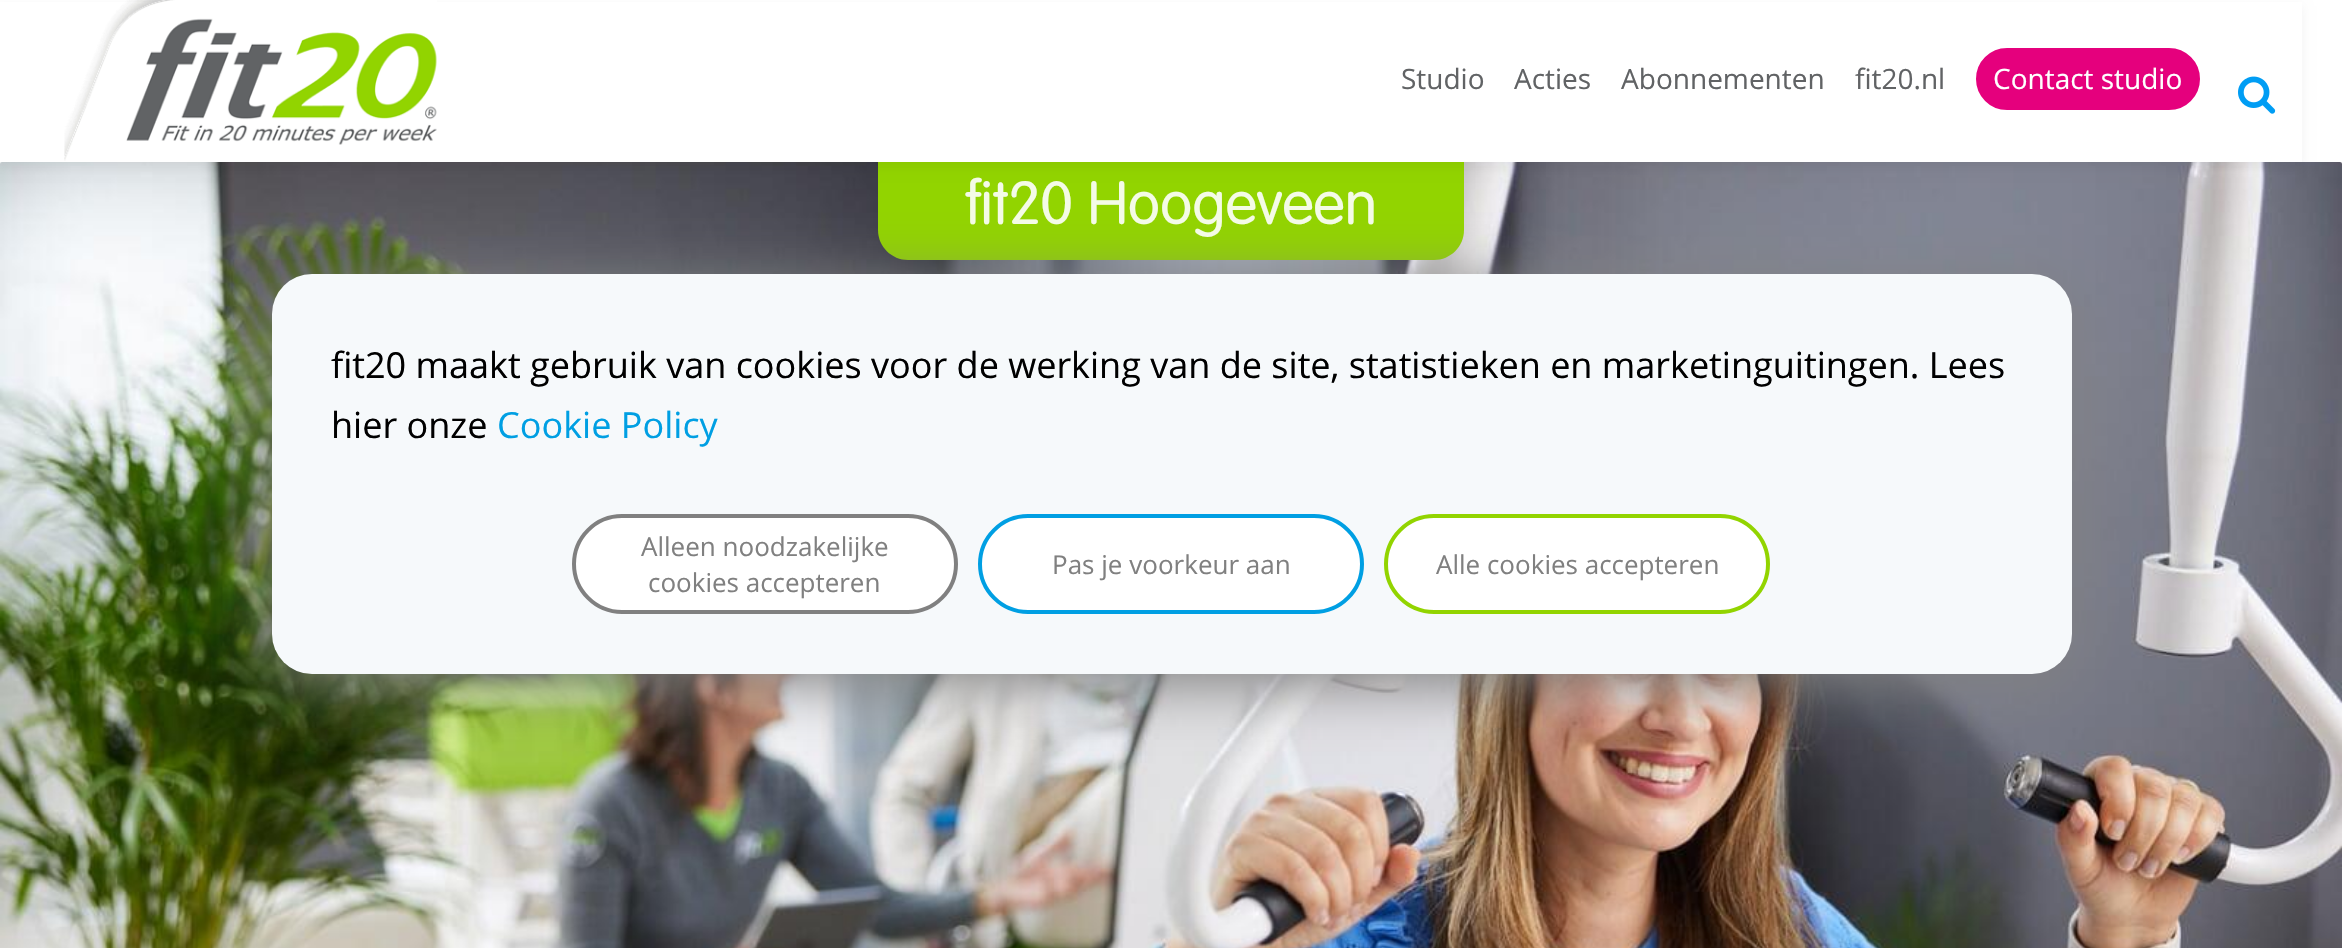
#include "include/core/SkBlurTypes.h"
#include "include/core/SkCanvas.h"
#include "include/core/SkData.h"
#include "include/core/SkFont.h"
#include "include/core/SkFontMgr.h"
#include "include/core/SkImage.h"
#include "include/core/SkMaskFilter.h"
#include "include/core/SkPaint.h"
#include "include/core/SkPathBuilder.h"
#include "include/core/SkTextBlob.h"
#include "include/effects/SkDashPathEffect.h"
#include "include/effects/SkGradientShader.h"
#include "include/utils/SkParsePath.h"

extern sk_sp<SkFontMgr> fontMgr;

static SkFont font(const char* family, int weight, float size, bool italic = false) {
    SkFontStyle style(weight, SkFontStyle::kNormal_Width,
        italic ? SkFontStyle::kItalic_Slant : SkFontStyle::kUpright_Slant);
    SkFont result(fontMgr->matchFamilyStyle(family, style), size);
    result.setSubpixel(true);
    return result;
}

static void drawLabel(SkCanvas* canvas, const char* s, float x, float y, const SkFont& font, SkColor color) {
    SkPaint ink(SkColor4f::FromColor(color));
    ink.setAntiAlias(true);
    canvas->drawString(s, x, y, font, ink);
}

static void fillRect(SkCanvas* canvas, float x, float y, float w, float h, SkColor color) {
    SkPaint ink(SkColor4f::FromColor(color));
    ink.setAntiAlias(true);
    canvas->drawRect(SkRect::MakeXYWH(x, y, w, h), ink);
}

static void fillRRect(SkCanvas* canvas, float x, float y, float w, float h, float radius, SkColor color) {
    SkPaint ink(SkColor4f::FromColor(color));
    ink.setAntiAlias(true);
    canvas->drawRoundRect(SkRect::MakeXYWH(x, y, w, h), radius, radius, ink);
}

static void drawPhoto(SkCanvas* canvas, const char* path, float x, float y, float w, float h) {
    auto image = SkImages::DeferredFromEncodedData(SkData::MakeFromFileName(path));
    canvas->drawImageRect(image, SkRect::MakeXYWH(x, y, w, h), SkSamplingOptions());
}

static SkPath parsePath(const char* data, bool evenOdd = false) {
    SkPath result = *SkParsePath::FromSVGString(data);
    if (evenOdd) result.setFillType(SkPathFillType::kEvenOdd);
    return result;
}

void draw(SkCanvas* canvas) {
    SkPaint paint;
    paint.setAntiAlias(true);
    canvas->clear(0xFFFFFFFF);
    drawPhoto(canvas, "assets/img3.png", 0, 162, 2342, 786);
    paint.setColor(0xFF92D400);
    canvas->drawPath(parsePath("M878 158H1464V230C1464 246.5 1450.5 260 1434 260H908C891.5 260 878 246.5 878 230Z"), paint);
    paint.setColor(0x0D000000);
    paint.setMaskFilter(SkMaskFilter::MakeBlur(kNormal_SkBlurStyle, 5));
    canvas->drawRect(SkRect::MakeXYWH(0, 6, 2302, 162), paint);
    paint.setMaskFilter(nullptr);
    fillRect(canvas, 0, 2, 2302, 160, 0xFFFFFFFF);
    drawPhoto(canvas, "assets/img1.png", 64, 0, 373, 161);
    SkFont font1 = font("Open Sans", 400, 28);
    drawLabel(canvas, "Studio", 1401, 89, font1, 0xFF616365);
    drawLabel(canvas, "Acties", 1514, 89, font1, 0xFF616365);
    drawLabel(canvas, "Abonnementen", 1621, 89, font1, 0xFF616365);
    drawLabel(canvas, "fit20.nl", 1855, 89, font1, 0xFF616365);
    paint.setColor(0xFFE5007D);
    canvas->drawRoundRect(SkRect::MakeXYWH(1977, 49, 222, 60), 30, 30, paint);
    paint.setStroke(true);
    paint.setStrokeWidth(2);
    canvas->drawRoundRect(SkRect::MakeXYWH(1977, 49, 222, 60), 30, 30, paint);
    drawLabel(canvas, "Contact studio", 1993, 89, font1, 0xFFFFFFFF);
    drawPhoto(canvas, "assets/img2.png", 2238, 76, 38, 38);
    paint.setStroke(false);
    paint.setColor(0xFF808080);
    paint.setMaskFilter(SkMaskFilter::MakeBlur(kNormal_SkBlurStyle, 30));
    canvas->drawRoundRect(SkRect::MakeXYWH(272, 284, 1800, 400), 40, 40, paint);
    paint.setMaskFilter(nullptr);
    fillRRect(canvas, 272, 274, 1800, 400, 40, 0xFFF6F9FB);
    SkFont font2 = font("Open Sans", 400, 36);
    drawLabel(canvas, "fit20 maakt gebruik van cookies voor de werking van de site, statistieken en marketinguitingen. Lees", 331, 378, font2, 0xFF000000);
    drawLabel(canvas, "hier onze", 331, 438, font2, 0xFF000000);
    drawLabel(canvas, "Cookie Policy", 497, 438, font2, 0xFF009FE3);
    paint.setColor(0xFFFFFFFF);
    canvas->drawRoundRect(SkRect::MakeXYWH(574, 516, 382, 96), 48, 48, paint);
    paint.setStroke(true);
    paint.setStrokeWidth(4);
    paint.setColor(0xFF808080);
    canvas->drawRoundRect(SkRect::MakeXYWH(574, 516, 382, 96), 48, 48, paint);
    SkFont font3 = font("Open Sans", 400, 26);
    drawLabel(canvas, "Alleen noodzakelijke", 641, 556, font3, 0xFF808080);
    drawLabel(canvas, "cookies accepteren", 648, 592, font3, 0xFF808080);
    paint.setStroke(false);
    paint.setColor(0xFFFFFFFF);
    canvas->drawRoundRect(SkRect::MakeXYWH(980, 516, 382, 96), 48, 48, paint);
    paint.setStroke(true);
    paint.setColor(0xFF009FE3);
    canvas->drawRoundRect(SkRect::MakeXYWH(980, 516, 382, 96), 48, 48, paint);
    drawLabel(canvas, "Pas je voorkeur aan", 1052, 574, font3, 0xFF808080);
    paint.setStroke(false);
    paint.setColor(0xFFFFFFFF);
    canvas->drawRoundRect(SkRect::MakeXYWH(1386, 516, 382, 96), 48, 48, paint);
    paint.setStroke(true);
    paint.setColor(0xFF92D400);
    canvas->drawRoundRect(SkRect::MakeXYWH(1386, 516, 382, 96), 48, 48, paint);
    drawLabel(canvas, "Alle cookies accepteren", 1436, 574, font3, 0xFF808080);
    SkFont font4 = font("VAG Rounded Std", 300, 60);
    drawLabel(canvas, "fit20 Hoogeveen", 965, 224, font4, 0xFFF4FBE6);
}
